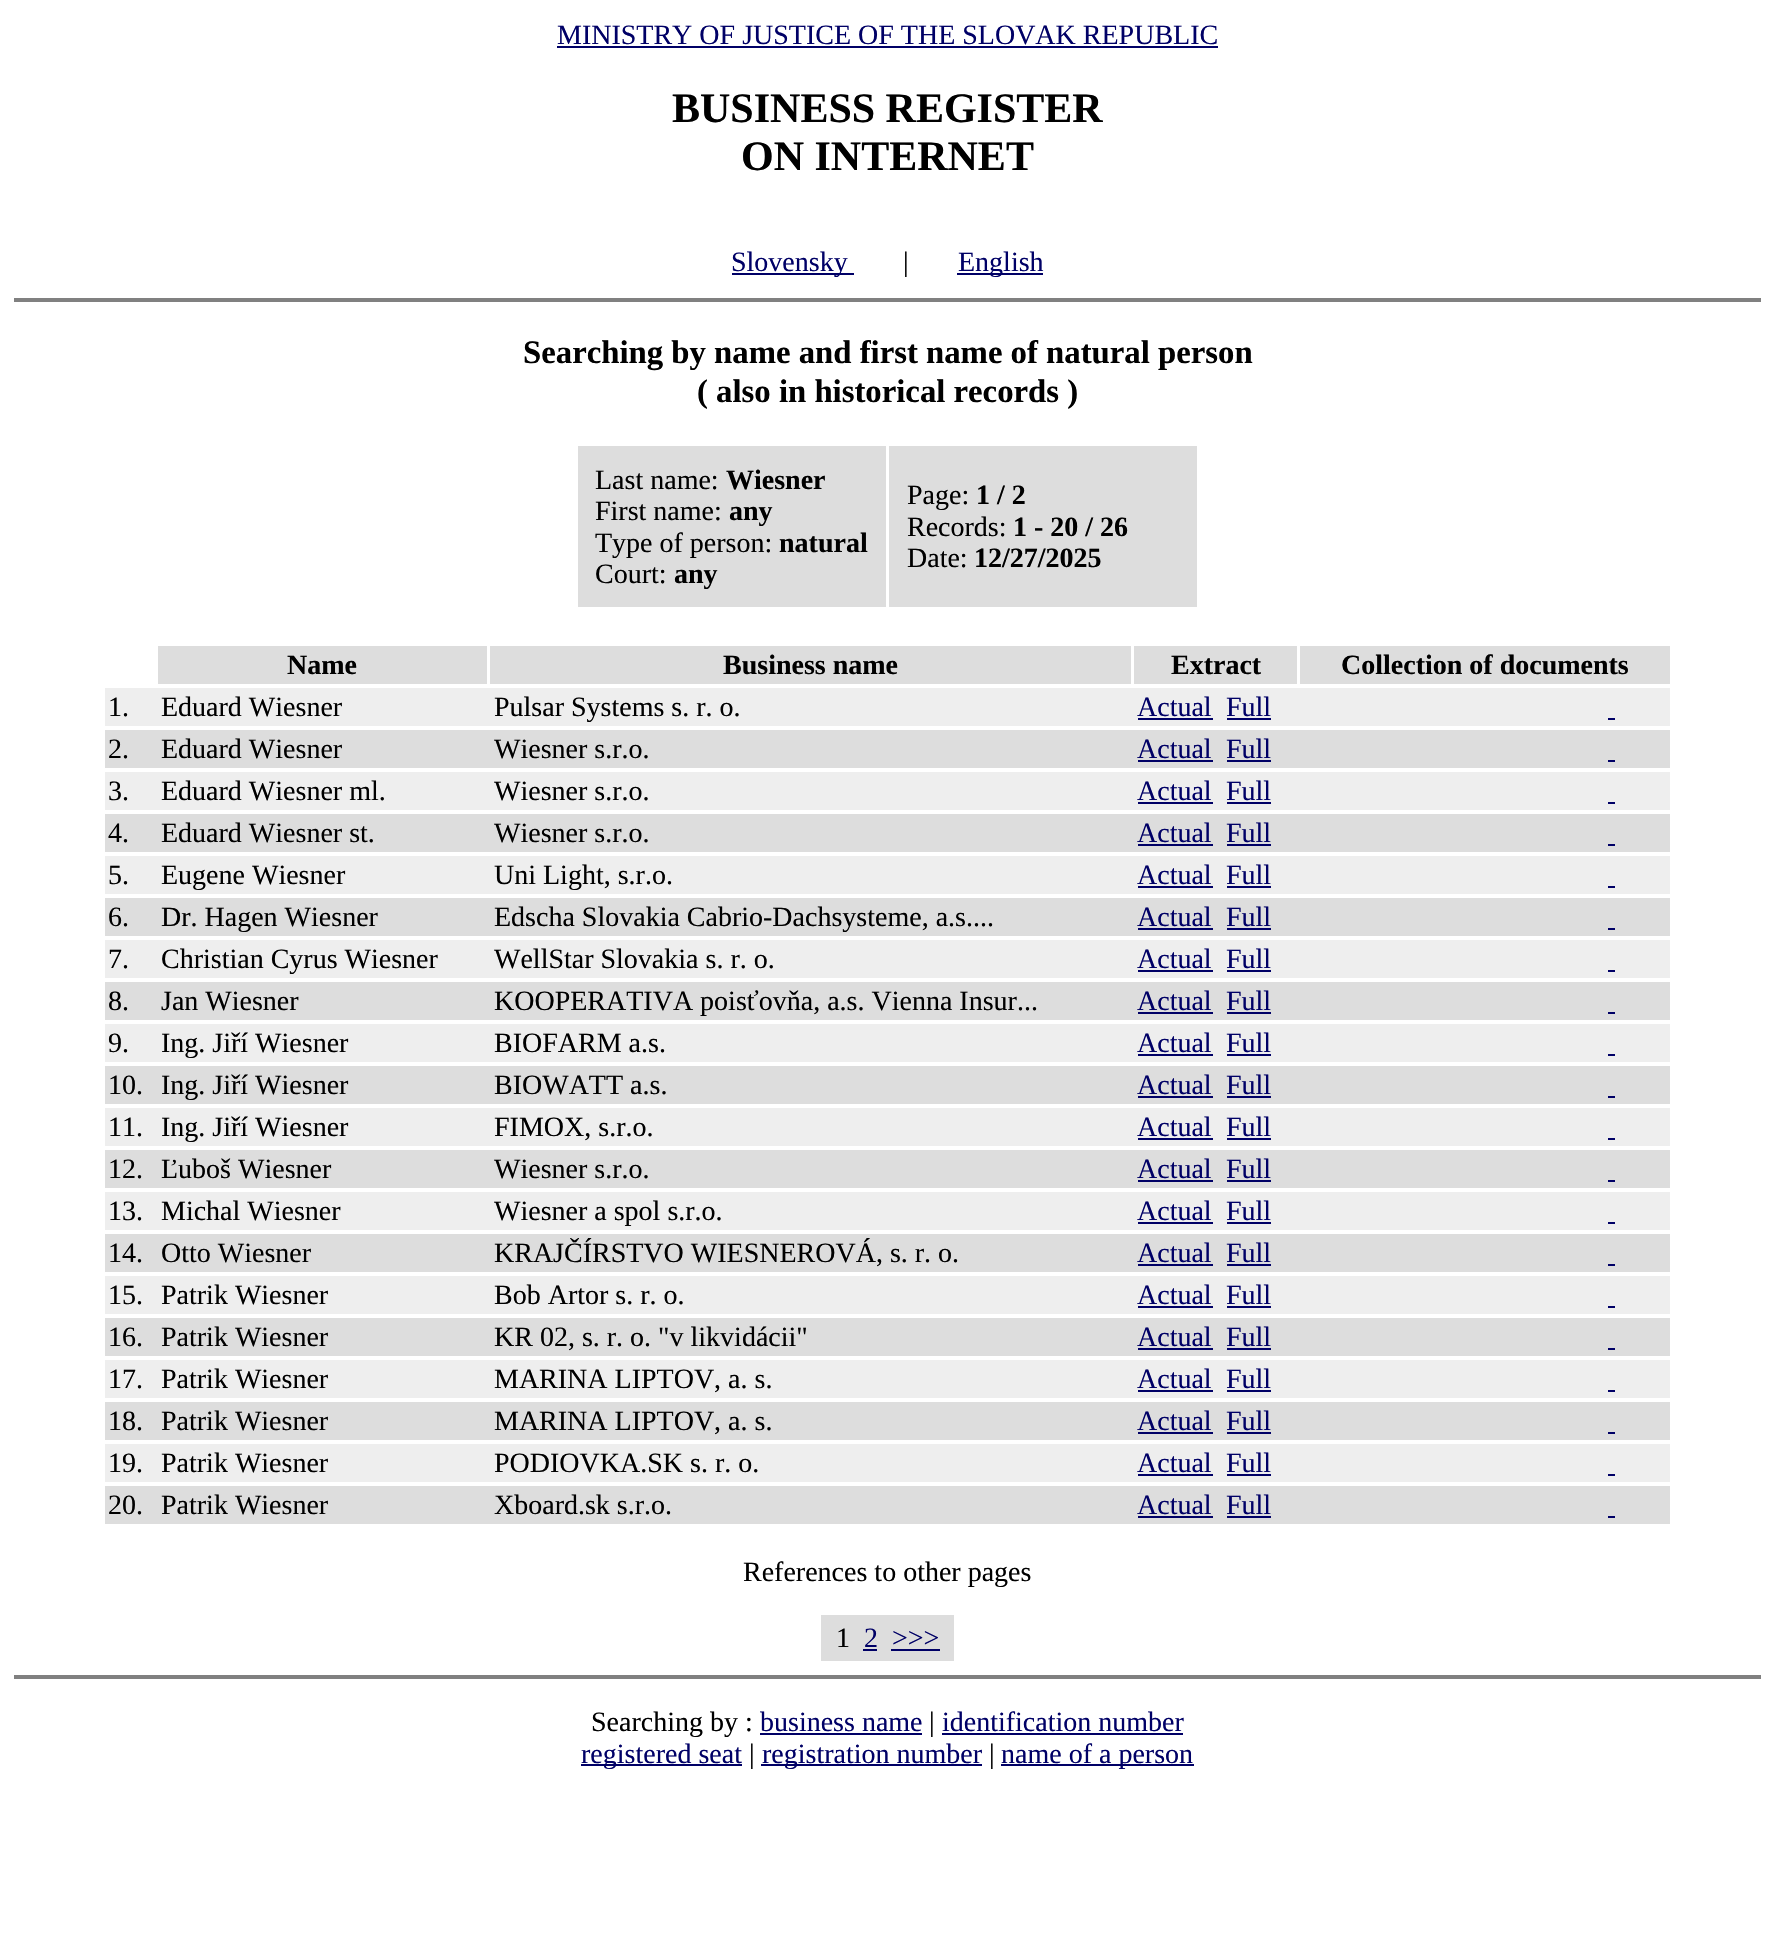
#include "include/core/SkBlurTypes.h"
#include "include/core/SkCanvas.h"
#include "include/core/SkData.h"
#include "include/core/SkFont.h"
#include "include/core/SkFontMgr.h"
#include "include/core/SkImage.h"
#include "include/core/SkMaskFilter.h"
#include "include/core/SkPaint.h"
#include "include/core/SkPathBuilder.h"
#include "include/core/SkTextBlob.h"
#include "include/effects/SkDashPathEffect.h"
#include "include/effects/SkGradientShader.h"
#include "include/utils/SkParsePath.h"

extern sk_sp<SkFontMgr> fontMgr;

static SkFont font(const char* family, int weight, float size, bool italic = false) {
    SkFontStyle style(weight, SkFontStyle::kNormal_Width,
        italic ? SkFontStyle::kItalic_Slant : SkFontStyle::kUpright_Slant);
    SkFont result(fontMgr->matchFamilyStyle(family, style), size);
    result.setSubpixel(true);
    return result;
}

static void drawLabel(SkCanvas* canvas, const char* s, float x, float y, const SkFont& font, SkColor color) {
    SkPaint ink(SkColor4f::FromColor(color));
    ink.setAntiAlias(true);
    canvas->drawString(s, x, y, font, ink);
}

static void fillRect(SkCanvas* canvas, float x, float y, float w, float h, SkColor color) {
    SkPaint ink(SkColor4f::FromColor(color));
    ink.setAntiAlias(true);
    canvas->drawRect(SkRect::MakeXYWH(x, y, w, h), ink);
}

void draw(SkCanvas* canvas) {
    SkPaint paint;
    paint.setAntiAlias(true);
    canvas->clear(0xFFFFFFFF);
    SkFont font1 = font("Liberation Serif", 400, 28);
    drawLabel(canvas, "MINISTRY OF JUSTICE OF THE SLOVAK REPUBLIC", 557, 44, font1, 0xFF000066);
    fillRect(canvas, 557, 46, 661, 2, 0xFF000066);
    SkFont font2 = font("Liberation Serif", 700, 42);
    drawLabel(canvas, "BUSINESS REGISTER", 672, 122, font2, 0xFF000000);
    drawLabel(canvas, "ON INTERNET", 741, 170, font2, 0xFF000000);
    fillRect(canvas, 732, 273, 122, 2, 0xFF000066);
    drawLabel(canvas, "Slovensky", 731, 271, font1, 0xFF000066);
    drawLabel(canvas, "|", 903, 271, font1, 0xFF000000);
    fillRect(canvas, 957, 273, 86, 2, 0xFF000066);
    drawLabel(canvas, "English", 958, 271, font1, 0xFF000066);
    fillRect(canvas, 14, 298, 1747, 4, 0xFF808080);
    SkFont font3 = font("Liberation Serif", 700, 32.75f);
    drawLabel(canvas, "Searching by name and first name of natural person", 523, 363, font3, 0xFF000000);
    drawLabel(canvas, "( also in historical records )", 697, 402, font3, 0xFF000000);
    fillRect(canvas, 578, 446, 308, 161, 0xFFDDDDDD);
    drawLabel(canvas, "Last name:", 595, 489, font1, 0xFF000000);
    SkFont font4 = font("Liberation Serif", 700, 28);
    drawLabel(canvas, "Wiesner", 726, 489, font4, 0xFF000000);
    drawLabel(canvas, "First name:", 595, 520, font1, 0xFF000000);
    drawLabel(canvas, "any", 729, 520, font4, 0xFF000000);
    drawLabel(canvas, "Type of person:", 595, 552, font1, 0xFF000000);
    drawLabel(canvas, "natural", 779, 552, font4, 0xFF000000);
    drawLabel(canvas, "Court:", 595, 583, font1, 0xFF000000);
    drawLabel(canvas, "any", 674, 583, font4, 0xFF000000);
    fillRect(canvas, 889, 446, 308, 161, 0xFFDDDDDD);
    drawLabel(canvas, "Page:", 907, 504, font1, 0xFF000000);
    drawLabel(canvas, "1 / 2", 976, 504, font4, 0xFF000000);
    drawLabel(canvas, "Records:", 907, 536, font1, 0xFF000000);
    drawLabel(canvas, "1 - 20 / 26", 1013, 536, font4, 0xFF000000);
    drawLabel(canvas, "Date:", 907, 567, font1, 0xFF000000);
    drawLabel(canvas, "12/27/2025", 974, 567, font4, 0xFF000000);
    fillRect(canvas, 158, 646, 329, 38, 0xFFDDDDDD);
    drawLabel(canvas, "Name", 287, 674, font4, 0xFF000000);
    fillRect(canvas, 490, 646, 641, 38, 0xFFDDDDDD);
    drawLabel(canvas, "Business name", 723, 674, font4, 0xFF000000);
    fillRect(canvas, 1134, 646, 163, 38, 0xFFDDDDDD);
    drawLabel(canvas, "Extract", 1171, 674, font4, 0xFF000000);
    fillRect(canvas, 1300, 646, 370, 38, 0xFFDDDDDD);
    drawLabel(canvas, "Collection of documents", 1341, 674, font4, 0xFF000000);
    fillRect(canvas, 105, 688, 1565, 38, 0xFFEEEEEE);
    drawLabel(canvas, "1.", 108, 716, font1, 0xFF000000);
    drawLabel(canvas, "Eduard Wiesner", 161, 716, font1, 0xFF000000);
    drawLabel(canvas, "Pulsar Systems s. r. o.", 494, 716, font1, 0xFF000000);
    drawLabel(canvas, "Actual", 1137, 716, font1, 0xFF000066);
    fillRect(canvas, 1138, 718, 75, 2, 0xFF000066);
    drawLabel(canvas, "Full", 1226, 716, font1, 0xFF000066);
    fillRect(canvas, 1227, 718, 44, 2, 0xFF000066);
    fillRect(canvas, 1608, 718, 7, 2, 0xFF000066);
    fillRect(canvas, 105, 730, 1565, 38, 0xFFDDDDDD);
    drawLabel(canvas, "2.", 108, 758, font1, 0xFF000000);
    drawLabel(canvas, "Eduard Wiesner", 161, 758, font1, 0xFF000000);
    drawLabel(canvas, "Wiesner s.r.o.", 494, 758, font1, 0xFF000000);
    drawLabel(canvas, "Actual", 1137, 758, font1, 0xFF000066);
    fillRect(canvas, 1138, 760, 75, 2, 0xFF000066);
    drawLabel(canvas, "Full", 1226, 758, font1, 0xFF000066);
    fillRect(canvas, 1227, 760, 44, 2, 0xFF000066);
    fillRect(canvas, 1608, 760, 7, 2, 0xFF000066);
    fillRect(canvas, 105, 772, 1565, 38, 0xFFEEEEEE);
    drawLabel(canvas, "3.", 108, 800, font1, 0xFF000000);
    drawLabel(canvas, "Eduard Wiesner ml.", 161, 800, font1, 0xFF000000);
    drawLabel(canvas, "Wiesner s.r.o.", 494, 800, font1, 0xFF000000);
    drawLabel(canvas, "Actual", 1137, 800, font1, 0xFF000066);
    fillRect(canvas, 1138, 802, 75, 2, 0xFF000066);
    drawLabel(canvas, "Full", 1226, 800, font1, 0xFF000066);
    fillRect(canvas, 1227, 802, 44, 2, 0xFF000066);
    fillRect(canvas, 1608, 802, 7, 2, 0xFF000066);
    fillRect(canvas, 105, 814, 1565, 38, 0xFFDDDDDD);
    drawLabel(canvas, "4.", 108, 842, font1, 0xFF000000);
    drawLabel(canvas, "Eduard Wiesner st.", 161, 842, font1, 0xFF000000);
    drawLabel(canvas, "Wiesner s.r.o.", 494, 842, font1, 0xFF000000);
    drawLabel(canvas, "Actual", 1137, 842, font1, 0xFF000066);
    fillRect(canvas, 1138, 844, 75, 2, 0xFF000066);
    drawLabel(canvas, "Full", 1226, 842, font1, 0xFF000066);
    fillRect(canvas, 1227, 844, 44, 2, 0xFF000066);
    fillRect(canvas, 1608, 844, 7, 2, 0xFF000066);
    fillRect(canvas, 105, 856, 1565, 38, 0xFFEEEEEE);
    drawLabel(canvas, "5.", 108, 884, font1, 0xFF000000);
    drawLabel(canvas, "Eugene Wiesner", 161, 884, font1, 0xFF000000);
    drawLabel(canvas, "Uni Light, s.r.o.", 494, 884, font1, 0xFF000000);
    drawLabel(canvas, "Actual", 1137, 884, font1, 0xFF000066);
    fillRect(canvas, 1138, 886, 75, 2, 0xFF000066);
    drawLabel(canvas, "Full", 1226, 884, font1, 0xFF000066);
    fillRect(canvas, 1227, 886, 44, 2, 0xFF000066);
    fillRect(canvas, 1608, 886, 7, 2, 0xFF000066);
    fillRect(canvas, 105, 898, 1565, 38, 0xFFDDDDDD);
    drawLabel(canvas, "6.", 108, 926, font1, 0xFF000000);
    drawLabel(canvas, "Dr. Hagen Wiesner", 161, 926, font1, 0xFF000000);
    drawLabel(canvas, "Edscha Slovakia Cabrio-Dachsysteme, a.s....", 494, 926, font1, 0xFF000000);
    drawLabel(canvas, "Actual", 1137, 926, font1, 0xFF000066);
    fillRect(canvas, 1138, 928, 75, 2, 0xFF000066);
    drawLabel(canvas, "Full", 1226, 926, font1, 0xFF000066);
    fillRect(canvas, 1227, 928, 44, 2, 0xFF000066);
    fillRect(canvas, 1608, 928, 7, 2, 0xFF000066);
    fillRect(canvas, 105, 940, 1565, 38, 0xFFEEEEEE);
    drawLabel(canvas, "7.", 108, 968, font1, 0xFF000000);
    drawLabel(canvas, "Christian Cyrus Wiesner", 161, 968, font1, 0xFF000000);
    drawLabel(canvas, "WellStar Slovakia s. r. o.", 494, 968, font1, 0xFF000000);
    drawLabel(canvas, "Actual", 1137, 968, font1, 0xFF000066);
    fillRect(canvas, 1138, 970, 75, 2, 0xFF000066);
    drawLabel(canvas, "Full", 1226, 968, font1, 0xFF000066);
    fillRect(canvas, 1227, 970, 44, 2, 0xFF000066);
    fillRect(canvas, 1608, 970, 7, 2, 0xFF000066);
    fillRect(canvas, 105, 982, 1565, 38, 0xFFDDDDDD);
    drawLabel(canvas, "8.", 108, 1010, font1, 0xFF000000);
    drawLabel(canvas, "Jan Wiesner", 161, 1010, font1, 0xFF000000);
    drawLabel(canvas, "KOOPERATIVA poisťovňa, a.s. Vienna Insur...", 494, 1010, font1, 0xFF000000);
    drawLabel(canvas, "Actual", 1137, 1010, font1, 0xFF000066);
    fillRect(canvas, 1138, 1012, 75, 2, 0xFF000066);
    drawLabel(canvas, "Full", 1226, 1010, font1, 0xFF000066);
    fillRect(canvas, 1227, 1012, 44, 2, 0xFF000066);
    fillRect(canvas, 1608, 1012, 7, 2, 0xFF000066);
    fillRect(canvas, 105, 1024, 1565, 38, 0xFFEEEEEE);
    drawLabel(canvas, "9.", 108, 1052, font1, 0xFF000000);
    drawLabel(canvas, "Ing. Jiří Wiesner", 161, 1052, font1, 0xFF000000);
    drawLabel(canvas, "BIOFARM a.s.", 494, 1052, font1, 0xFF000000);
    drawLabel(canvas, "Actual", 1137, 1052, font1, 0xFF000066);
    fillRect(canvas, 1138, 1054, 75, 2, 0xFF000066);
    drawLabel(canvas, "Full", 1226, 1052, font1, 0xFF000066);
    fillRect(canvas, 1227, 1054, 44, 2, 0xFF000066);
    fillRect(canvas, 1608, 1054, 7, 2, 0xFF000066);
    fillRect(canvas, 105, 1066, 1565, 38, 0xFFDDDDDD);
    drawLabel(canvas, "10.", 108, 1094, font1, 0xFF000000);
    drawLabel(canvas, "Ing. Jiří Wiesner", 161, 1094, font1, 0xFF000000);
    drawLabel(canvas, "BIOWATT a.s.", 494, 1094, font1, 0xFF000000);
    drawLabel(canvas, "Actual", 1137, 1094, font1, 0xFF000066);
    fillRect(canvas, 1138, 1096, 75, 2, 0xFF000066);
    drawLabel(canvas, "Full", 1226, 1094, font1, 0xFF000066);
    fillRect(canvas, 1227, 1096, 44, 2, 0xFF000066);
    fillRect(canvas, 1608, 1096, 7, 2, 0xFF000066);
    fillRect(canvas, 105, 1108, 1565, 38, 0xFFEEEEEE);
    drawLabel(canvas, "11.", 108, 1136, font1, 0xFF000000);
    drawLabel(canvas, "Ing. Jiří Wiesner", 161, 1136, font1, 0xFF000000);
    drawLabel(canvas, "FIMOX, s.r.o.", 494, 1136, font1, 0xFF000000);
    drawLabel(canvas, "Actual", 1137, 1136, font1, 0xFF000066);
    fillRect(canvas, 1138, 1138, 75, 2, 0xFF000066);
    drawLabel(canvas, "Full", 1226, 1136, font1, 0xFF000066);
    fillRect(canvas, 1227, 1138, 44, 2, 0xFF000066);
    fillRect(canvas, 1608, 1138, 7, 2, 0xFF000066);
    fillRect(canvas, 105, 1150, 1565, 38, 0xFFDDDDDD);
    drawLabel(canvas, "12.", 108, 1178, font1, 0xFF000000);
    drawLabel(canvas, "Ľuboš Wiesner", 161, 1178, font1, 0xFF000000);
    drawLabel(canvas, "Wiesner s.r.o.", 494, 1178, font1, 0xFF000000);
    drawLabel(canvas, "Actual", 1137, 1178, font1, 0xFF000066);
    fillRect(canvas, 1138, 1180, 75, 2, 0xFF000066);
    drawLabel(canvas, "Full", 1226, 1178, font1, 0xFF000066);
    fillRect(canvas, 1227, 1180, 44, 2, 0xFF000066);
    fillRect(canvas, 1608, 1180, 7, 2, 0xFF000066);
    fillRect(canvas, 105, 1192, 1565, 38, 0xFFEEEEEE);
    drawLabel(canvas, "13.", 108, 1220, font1, 0xFF000000);
    drawLabel(canvas, "Michal Wiesner", 161, 1220, font1, 0xFF000000);
    drawLabel(canvas, "Wiesner a spol s.r.o.", 494, 1220, font1, 0xFF000000);
    drawLabel(canvas, "Actual", 1137, 1220, font1, 0xFF000066);
    fillRect(canvas, 1138, 1222, 75, 2, 0xFF000066);
    drawLabel(canvas, "Full", 1226, 1220, font1, 0xFF000066);
    fillRect(canvas, 1227, 1222, 44, 2, 0xFF000066);
    fillRect(canvas, 1608, 1222, 7, 2, 0xFF000066);
    fillRect(canvas, 105, 1234, 1565, 38, 0xFFDDDDDD);
    drawLabel(canvas, "14.", 108, 1262, font1, 0xFF000000);
    drawLabel(canvas, "Otto Wiesner", 161, 1262, font1, 0xFF000000);
    drawLabel(canvas, "KRAJČÍRSTVO WIESNEROVÁ, s. r. o.", 494, 1262, font1, 0xFF000000);
    drawLabel(canvas, "Actual", 1137, 1262, font1, 0xFF000066);
    fillRect(canvas, 1138, 1264, 75, 2, 0xFF000066);
    drawLabel(canvas, "Full", 1226, 1262, font1, 0xFF000066);
    fillRect(canvas, 1227, 1264, 44, 2, 0xFF000066);
    fillRect(canvas, 1608, 1264, 7, 2, 0xFF000066);
    fillRect(canvas, 105, 1276, 1565, 38, 0xFFEEEEEE);
    drawLabel(canvas, "15.", 108, 1304, font1, 0xFF000000);
    drawLabel(canvas, "Patrik Wiesner", 161, 1304, font1, 0xFF000000);
    drawLabel(canvas, "Bob Artor s. r. o.", 494, 1304, font1, 0xFF000000);
    drawLabel(canvas, "Actual", 1137, 1304, font1, 0xFF000066);
    fillRect(canvas, 1138, 1306, 75, 2, 0xFF000066);
    drawLabel(canvas, "Full", 1226, 1304, font1, 0xFF000066);
    fillRect(canvas, 1227, 1306, 44, 2, 0xFF000066);
    fillRect(canvas, 1608, 1306, 7, 2, 0xFF000066);
    fillRect(canvas, 105, 1318, 1565, 38, 0xFFDDDDDD);
    drawLabel(canvas, "16.", 108, 1346, font1, 0xFF000000);
    drawLabel(canvas, "Patrik Wiesner", 161, 1346, font1, 0xFF000000);
    drawLabel(canvas, "KR 02, s. r. o. \"v likvidácii\"", 494, 1346, font1, 0xFF000000);
    drawLabel(canvas, "Actual", 1137, 1346, font1, 0xFF000066);
    fillRect(canvas, 1138, 1348, 75, 2, 0xFF000066);
    drawLabel(canvas, "Full", 1226, 1346, font1, 0xFF000066);
    fillRect(canvas, 1227, 1348, 44, 2, 0xFF000066);
    fillRect(canvas, 1608, 1348, 7, 2, 0xFF000066);
    fillRect(canvas, 105, 1360, 1565, 38, 0xFFEEEEEE);
    drawLabel(canvas, "17.", 108, 1388, font1, 0xFF000000);
    drawLabel(canvas, "Patrik Wiesner", 161, 1388, font1, 0xFF000000);
    drawLabel(canvas, "MARINA LIPTOV, a. s.", 494, 1388, font1, 0xFF000000);
    drawLabel(canvas, "Actual", 1137, 1388, font1, 0xFF000066);
    fillRect(canvas, 1138, 1390, 75, 2, 0xFF000066);
    drawLabel(canvas, "Full", 1226, 1388, font1, 0xFF000066);
    fillRect(canvas, 1227, 1390, 44, 2, 0xFF000066);
    fillRect(canvas, 1608, 1390, 7, 2, 0xFF000066);
    fillRect(canvas, 105, 1402, 1565, 38, 0xFFDDDDDD);
    drawLabel(canvas, "18.", 108, 1430, font1, 0xFF000000);
    drawLabel(canvas, "Patrik Wiesner", 161, 1430, font1, 0xFF000000);
    drawLabel(canvas, "MARINA LIPTOV, a. s.", 494, 1430, font1, 0xFF000000);
    drawLabel(canvas, "Actual", 1137, 1430, font1, 0xFF000066);
    fillRect(canvas, 1138, 1432, 75, 2, 0xFF000066);
    drawLabel(canvas, "Full", 1226, 1430, font1, 0xFF000066);
    fillRect(canvas, 1227, 1432, 44, 2, 0xFF000066);
    fillRect(canvas, 1608, 1432, 7, 2, 0xFF000066);
    fillRect(canvas, 105, 1444, 1565, 38, 0xFFEEEEEE);
    drawLabel(canvas, "19.", 108, 1472, font1, 0xFF000000);
    drawLabel(canvas, "Patrik Wiesner", 161, 1472, font1, 0xFF000000);
    drawLabel(canvas, "PODIOVKA.SK s. r. o.", 494, 1472, font1, 0xFF000000);
    drawLabel(canvas, "Actual", 1137, 1472, font1, 0xFF000066);
    fillRect(canvas, 1138, 1474, 75, 2, 0xFF000066);
    drawLabel(canvas, "Full", 1226, 1472, font1, 0xFF000066);
    fillRect(canvas, 1227, 1474, 44, 2, 0xFF000066);
    fillRect(canvas, 1608, 1474, 7, 2, 0xFF000066);
    fillRect(canvas, 105, 1486, 1565, 38, 0xFFDDDDDD);
    drawLabel(canvas, "20.", 108, 1514, font1, 0xFF000000);
    drawLabel(canvas, "Patrik Wiesner", 161, 1514, font1, 0xFF000000);
    drawLabel(canvas, "Xboard.sk s.r.o.", 494, 1514, font1, 0xFF000000);
    drawLabel(canvas, "Actual", 1137, 1514, font1, 0xFF000066);
    fillRect(canvas, 1138, 1516, 75, 2, 0xFF000066);
    drawLabel(canvas, "Full", 1226, 1514, font1, 0xFF000066);
    fillRect(canvas, 1227, 1516, 44, 2, 0xFF000066);
    fillRect(canvas, 1608, 1516, 7, 2, 0xFF000066);
    drawLabel(canvas, "References to other pages", 743, 1581, font1, 0xFF000000);
    fillRect(canvas, 821, 1615, 133, 46, 0xFFDDDDDD);
    drawLabel(canvas, "1", 836, 1647, font1, 0xFF000000);
    drawLabel(canvas, "2", 864, 1647, font1, 0xFF000066);
    fillRect(canvas, 863, 1649, 14, 2, 0xFF000066);
    drawLabel(canvas, ">>>", 892, 1647, font1, 0xFF000066);
    fillRect(canvas, 891, 1649, 49, 2, 0xFF000066);
    fillRect(canvas, 14, 1675, 1747, 4, 0xFF808080);
    drawLabel(canvas, "Searching by :", 591, 1731, font1, 0xFF000000);
    drawLabel(canvas, "business name", 760, 1731, font1, 0xFF000066);
    fillRect(canvas, 760, 1733, 162, 2, 0xFF000066);
    drawLabel(canvas, "|", 929, 1731, font1, 0xFF000000);
    drawLabel(canvas, "identification number", 942, 1731, font1, 0xFF000066);
    fillRect(canvas, 942, 1733, 241, 2, 0xFF000066);
    fillRect(canvas, 581, 1764, 161, 2, 0xFF000066);
    drawLabel(canvas, "registered seat", 581, 1763, font1, 0xFF000066);
    drawLabel(canvas, "|", 749, 1763, font1, 0xFF000000);
    fillRect(canvas, 761, 1764, 221, 2, 0xFF000066);
    drawLabel(canvas, "registration number", 762, 1763, font1, 0xFF000066);
    drawLabel(canvas, "|", 989, 1763, font1, 0xFF000000);
    fillRect(canvas, 1001, 1764, 193, 2, 0xFF000066);
    drawLabel(canvas, "name of a person", 1001, 1763, font1, 0xFF000066);
}
